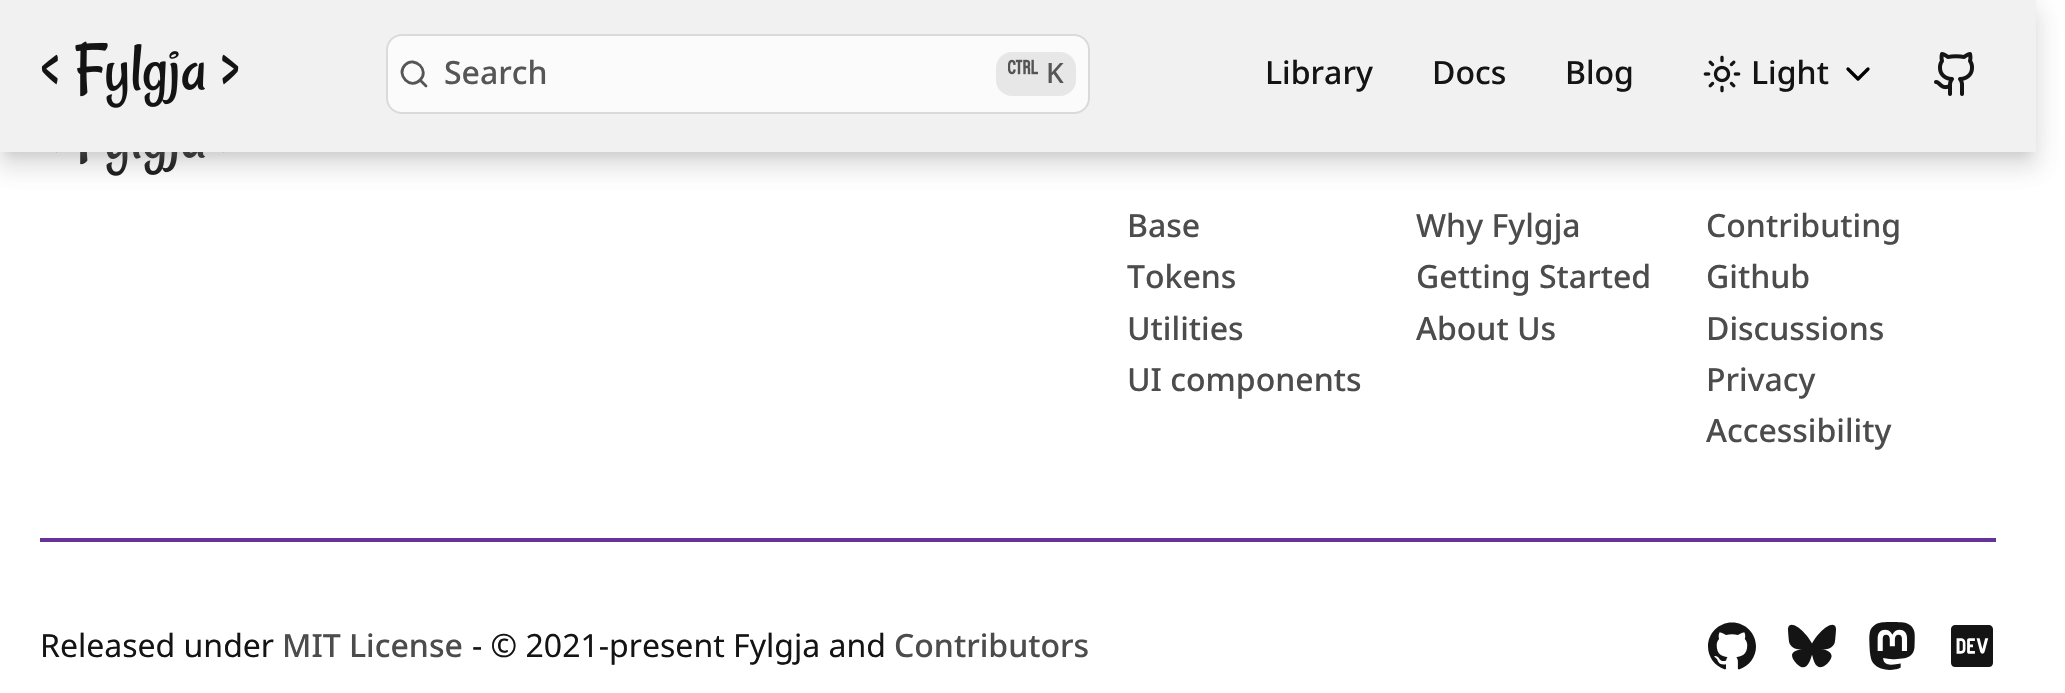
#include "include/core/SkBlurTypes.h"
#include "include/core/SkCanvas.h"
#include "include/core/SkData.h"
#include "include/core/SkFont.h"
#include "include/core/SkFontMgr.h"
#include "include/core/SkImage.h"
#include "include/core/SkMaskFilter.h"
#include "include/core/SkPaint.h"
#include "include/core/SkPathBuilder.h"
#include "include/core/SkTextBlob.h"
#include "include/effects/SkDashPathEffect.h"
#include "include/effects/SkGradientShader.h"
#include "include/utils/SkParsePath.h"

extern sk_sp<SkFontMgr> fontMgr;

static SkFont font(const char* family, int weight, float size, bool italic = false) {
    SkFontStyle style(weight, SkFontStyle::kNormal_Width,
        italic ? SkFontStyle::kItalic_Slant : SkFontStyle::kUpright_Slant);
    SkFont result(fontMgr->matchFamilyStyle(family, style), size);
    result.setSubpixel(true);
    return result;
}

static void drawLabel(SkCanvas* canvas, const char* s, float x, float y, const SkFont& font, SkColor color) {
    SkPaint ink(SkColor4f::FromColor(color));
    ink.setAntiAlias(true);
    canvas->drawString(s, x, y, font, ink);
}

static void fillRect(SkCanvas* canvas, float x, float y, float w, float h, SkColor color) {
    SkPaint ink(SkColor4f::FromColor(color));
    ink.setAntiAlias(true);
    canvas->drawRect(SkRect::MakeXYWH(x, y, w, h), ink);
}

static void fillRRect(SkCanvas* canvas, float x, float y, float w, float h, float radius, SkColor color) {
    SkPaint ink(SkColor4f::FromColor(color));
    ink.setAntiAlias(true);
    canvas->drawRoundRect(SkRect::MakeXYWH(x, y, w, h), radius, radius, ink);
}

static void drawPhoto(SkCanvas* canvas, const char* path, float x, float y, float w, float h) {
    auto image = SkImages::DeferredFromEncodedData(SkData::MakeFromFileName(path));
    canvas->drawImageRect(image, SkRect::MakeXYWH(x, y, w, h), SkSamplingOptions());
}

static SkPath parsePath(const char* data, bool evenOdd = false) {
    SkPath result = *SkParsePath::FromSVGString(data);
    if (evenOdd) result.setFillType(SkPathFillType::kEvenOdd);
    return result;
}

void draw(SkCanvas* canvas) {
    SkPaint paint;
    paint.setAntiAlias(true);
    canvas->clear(0xFFFFFFFF);
    drawPhoto(canvas, "assets/img5.png", 56, 152, 169, 24);
    paint.setColor(0x21808080);
    paint.setMaskFilter(SkMaskFilter::MakeBlur(kNormal_SkBlurStyle, 14));
    canvas->drawRect(SkRect::MakeXYWH(-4, 0, 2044, 162), paint);
    paint.setMaskFilter(nullptr);
    paint.setColor(0x26808080);
    paint.setMaskFilter(SkMaskFilter::MakeBlur(kNormal_SkBlurStyle, 10));
    canvas->drawRect(SkRect::MakeXYWH(-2, 12, 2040, 158), paint);
    paint.setMaskFilter(nullptr);
    paint.setColor(0x36808080);
    paint.setMaskFilter(SkMaskFilter::MakeBlur(kNormal_SkBlurStyle, 5));
    canvas->drawRect(SkRect::MakeXYWH(6, 14, 2024, 142), paint);
    paint.setMaskFilter(nullptr);
    fillRect(canvas, 0, 0, 2036, 152, 0xFFF1F1F1);
    drawPhoto(canvas, "assets/img1.png", 41, 41, 198, 67);
    fillRRect(canvas, 386, 34, 704, 80, 16, 0xFFFBFBFB);
    paint.setStroke(true);
    paint.setStrokeWidth(2);
    paint.setColor(0x33565656);
    canvas->drawRoundRect(SkRect::MakeXYWH(387, 35, 702, 78), 15, 15, paint);
    paint.setStrokeWidth(2.8f);
    paint.setStrokeCap(SkPaint::kRound_Cap);
    paint.setStrokeJoin(SkPaint::kRound_Join);
    paint.setColor(0xFF565656);
    canvas->drawPath(parsePath("M420 80L426 86L420 80C410.5 90 395.5 75 405 65C415 55.5 430 70.5 420 80Z"), paint);
    SkFont font1 = font("Noto Sans", 500, 32);
    drawLabel(canvas, "Search", 444, 84, font1, 0xFF565656);
    fillRRect(canvas, 996, 52, 80, 44, 16, 0xFFE7E7E7);
    drawPhoto(canvas, "assets/img2.png", 1008, 59, 30, 16);
    SkFont font2 = font("Noto Sans", 500, 28);
    drawLabel(canvas, "K", 1046, 83, font2, 0xFF565656);
    drawLabel(canvas, "Library", 1265, 84, font1, 0xFF141414);
    drawLabel(canvas, "Docs", 1432, 84, font1, 0xFF141414);
    drawLabel(canvas, "Blog", 1565, 84, font1, 0xFF141414);
    drawPhoto(canvas, "assets/img3.png", 1703, 55, 38, 38);
    paint.setStrokeWidth(3.3f);
    paint.setColor(0xFF000000);
    canvas->drawPath(parsePath("M1848 69L1858 79L1868 69"), paint);
    drawLabel(canvas, "Light", 1751, 84, font1, 0xFF141414);
    drawPhoto(canvas, "assets/img4.png", 1934, 52, 40, 44);
    drawLabel(canvas, "Base", 1127, 237, font1, 0xFF4C4C4C);
    drawLabel(canvas, "Tokens", 1127, 288, font1, 0xFF4C4C4C);
    drawLabel(canvas, "Utilities", 1127, 340, font1, 0xFF4C4C4C);
    drawLabel(canvas, "UI components", 1127, 391, font1, 0xFF4C4C4C);
    drawLabel(canvas, "Why Fylgja", 1416, 237, font1, 0xFF4C4C4C);
    drawLabel(canvas, "Getting Started", 1416, 288, font1, 0xFF4C4C4C);
    drawLabel(canvas, "About Us", 1416, 340, font1, 0xFF4C4C4C);
    drawLabel(canvas, "Contributing", 1706, 237, font1, 0xFF4C4C4C);
    drawLabel(canvas, "Github", 1706, 288, font1, 0xFF4C4C4C);
    drawLabel(canvas, "Discussions", 1706, 340, font1, 0xFF4C4C4C);
    drawLabel(canvas, "Privacy", 1706, 391, font1, 0xFF4C4C4C);
    drawLabel(canvas, "Accessibility", 1706, 442, font1, 0xFF4C4C4C);
    fillRect(canvas, 40, 538, 1956, 4, 0xFF663399);
    SkFont font3 = font("Noto Sans", 400, 32);
    drawLabel(canvas, "Released under", 40, 657, font3, 0xFF141414);
    drawLabel(canvas, "MIT License", 282, 657, font1, 0xFF4C4C4C);
    drawLabel(canvas, "- © 2021-present Fylgja and", 472, 657, font3, 0xFF141414);
    drawLabel(canvas, "Contributors", 894, 657, font1, 0xFF4C4C4C);
    drawPhoto(canvas, "assets/img6.png", 1708, 622, 48, 48);
    drawPhoto(canvas, "assets/img7.png", 1788, 624, 48, 44);
    drawPhoto(canvas, "assets/img8.png", 1869, 622, 46, 48);
    drawPhoto(canvas, "assets/img9.png", 1951, 625, 42, 42);
}
